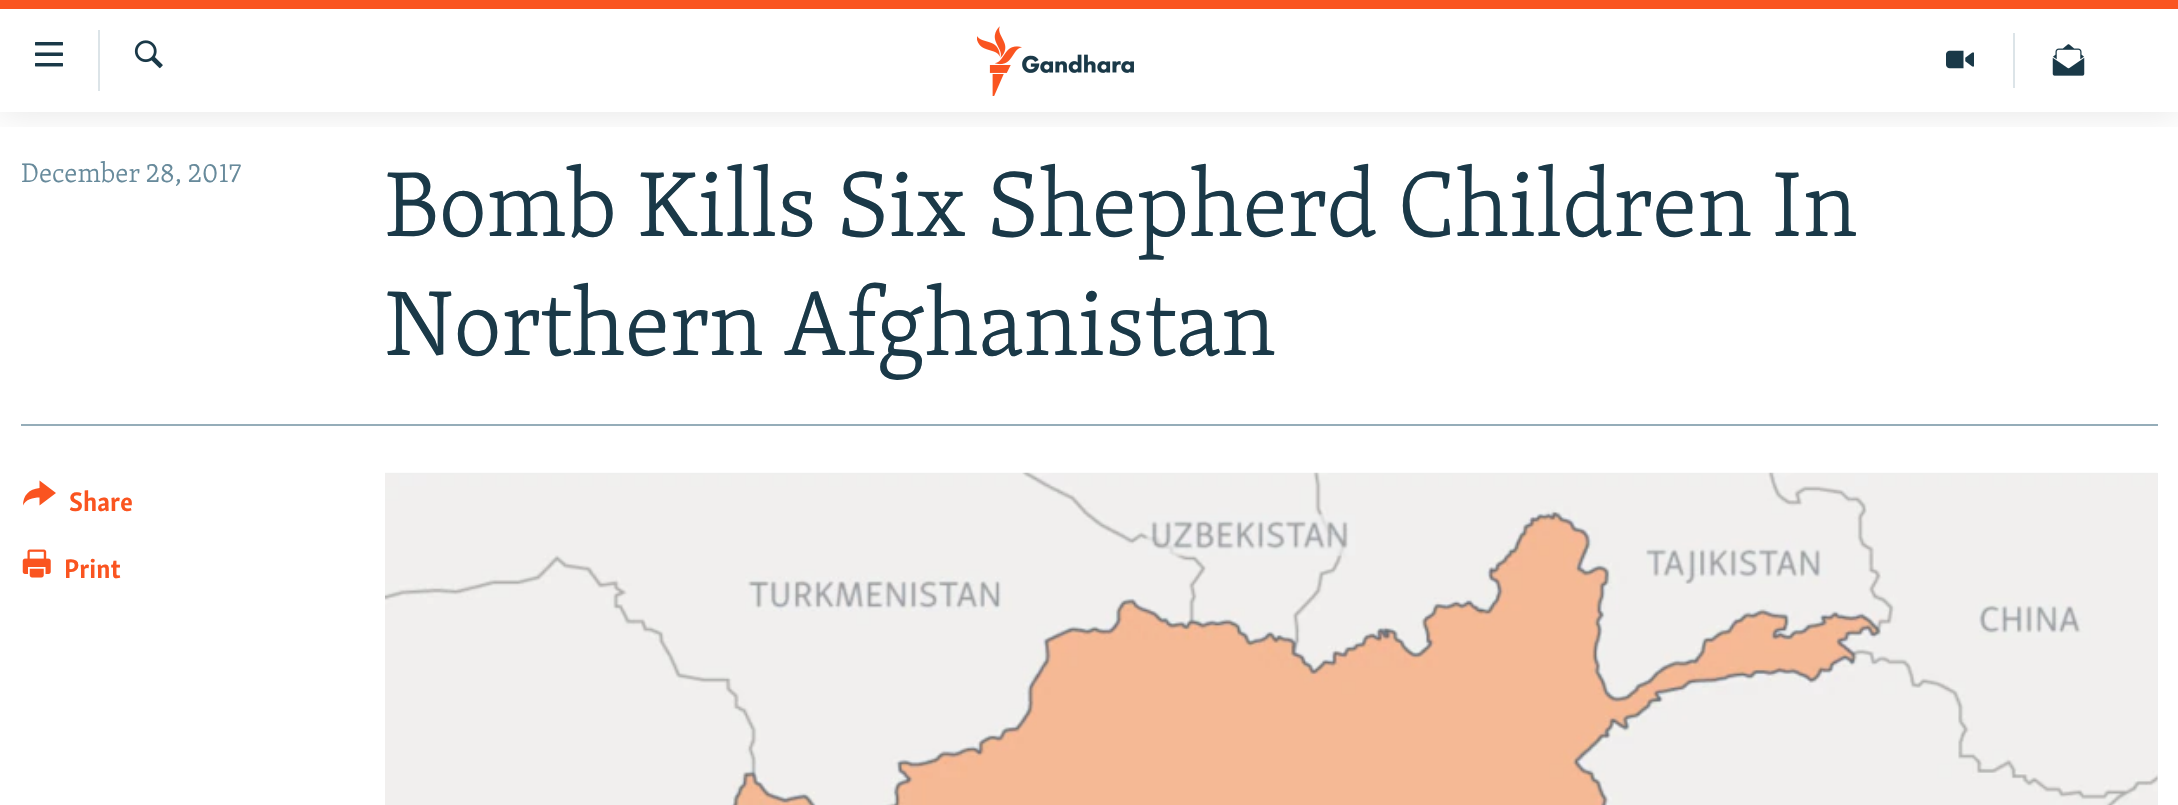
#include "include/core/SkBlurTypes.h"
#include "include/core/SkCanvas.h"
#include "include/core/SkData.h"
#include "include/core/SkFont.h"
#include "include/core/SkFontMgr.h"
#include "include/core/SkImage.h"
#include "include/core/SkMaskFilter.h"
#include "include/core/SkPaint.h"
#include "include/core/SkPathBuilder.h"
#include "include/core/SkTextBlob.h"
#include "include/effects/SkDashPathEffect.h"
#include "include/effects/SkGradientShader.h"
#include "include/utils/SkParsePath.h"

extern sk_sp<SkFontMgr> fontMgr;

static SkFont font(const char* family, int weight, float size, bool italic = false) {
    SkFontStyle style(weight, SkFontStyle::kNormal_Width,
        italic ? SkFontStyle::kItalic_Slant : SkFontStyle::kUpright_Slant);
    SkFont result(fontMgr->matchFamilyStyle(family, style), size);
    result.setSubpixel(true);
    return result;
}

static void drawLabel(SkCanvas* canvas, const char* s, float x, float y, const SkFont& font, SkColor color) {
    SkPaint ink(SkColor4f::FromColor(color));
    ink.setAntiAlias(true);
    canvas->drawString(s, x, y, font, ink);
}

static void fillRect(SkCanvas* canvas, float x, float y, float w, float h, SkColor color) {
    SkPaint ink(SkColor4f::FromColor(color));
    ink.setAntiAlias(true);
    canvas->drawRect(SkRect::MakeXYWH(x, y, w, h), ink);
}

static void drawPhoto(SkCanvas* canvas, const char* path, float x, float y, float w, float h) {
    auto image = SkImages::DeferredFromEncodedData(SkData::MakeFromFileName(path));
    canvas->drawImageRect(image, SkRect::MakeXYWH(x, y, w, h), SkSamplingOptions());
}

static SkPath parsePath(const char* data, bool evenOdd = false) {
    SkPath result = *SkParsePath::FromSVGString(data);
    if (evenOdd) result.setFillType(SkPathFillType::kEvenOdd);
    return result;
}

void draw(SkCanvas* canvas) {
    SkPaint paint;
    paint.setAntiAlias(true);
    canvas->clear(0xFFFFFFFF);
    canvas->save();
    canvas->clipRect(SkRect::MakeXYWH(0, 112, 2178, 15));
    paint.setColor(0x1A000000);
    paint.setMaskFilter(SkMaskFilter::MakeBlur(kNormal_SkBlurStyle, 17.5f));
    canvas->drawRect(SkRect::MakeXYWH(0, 0, 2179, 112), paint);
    paint.setMaskFilter(nullptr);
    canvas->restore();
    fillRect(canvas, 0, 0, 2178, 9, 0xFFFA5420);
    drawPhoto(canvas, "assets/img1.png", 35, 42, 28, 25);
    fillRect(canvas, 98, 30, 2, 61, 0xFFDCE4E8);
    drawPhoto(canvas, "assets/img2.png", 134, 40, 29, 29);
    drawPhoto(canvas, "assets/img3.png", 977, 26, 157, 70);
    fillRect(canvas, 2013, 33, 2, 55, 0xFFDCE4E8);
    drawPhoto(canvas, "assets/img4.png", 1946, 50, 28, 19);
    drawPhoto(canvas, "assets/img5.png", 2052, 44, 33, 32);
    SkFont font1 = font("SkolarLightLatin", 300, 27.5f);
    drawLabel(canvas, "December 28, 2017", 21, 182, font1, 0xFF678A9B);
    SkFont font2 = font("SkolarLightLatin", 300, 94.5f);
    drawLabel(canvas, "Bomb Kills Six Shepherd Children In", 384, 236, font2, 0xFF1A3948);
    drawLabel(canvas, "Northern Afghanistan", 384, 355, font2, 0xFF1A3948);
    fillRect(canvas, 21, 424, 2137, 2, 0xFF95ADB9);
    paint.setColor(0xFFFA5420);
    canvas->drawPath(parsePath("M23 505.5C23 495.5 29 489 39.5 488V480.5L56 493L39.5 505.5V497.5C33 497.5 25.5 499.5 23 505.5Z"), paint);
    SkFont font3 = font("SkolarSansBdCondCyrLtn", 700, 27.5f);
    drawLabel(canvas, "Share", 69, 511, font3, 0xFFFA5420);
    drawPhoto(canvas, "assets/img6.png", 22, 549, 29, 29);
    drawLabel(canvas, "Print", 64, 578, font3, 0xFFFA5420);
    fillRect(canvas, 385, 473, 1773, 332, 0xFFEDEFF0);
    drawPhoto(canvas, "assets/img7.png", 385, 472, 1773, 333);
}
